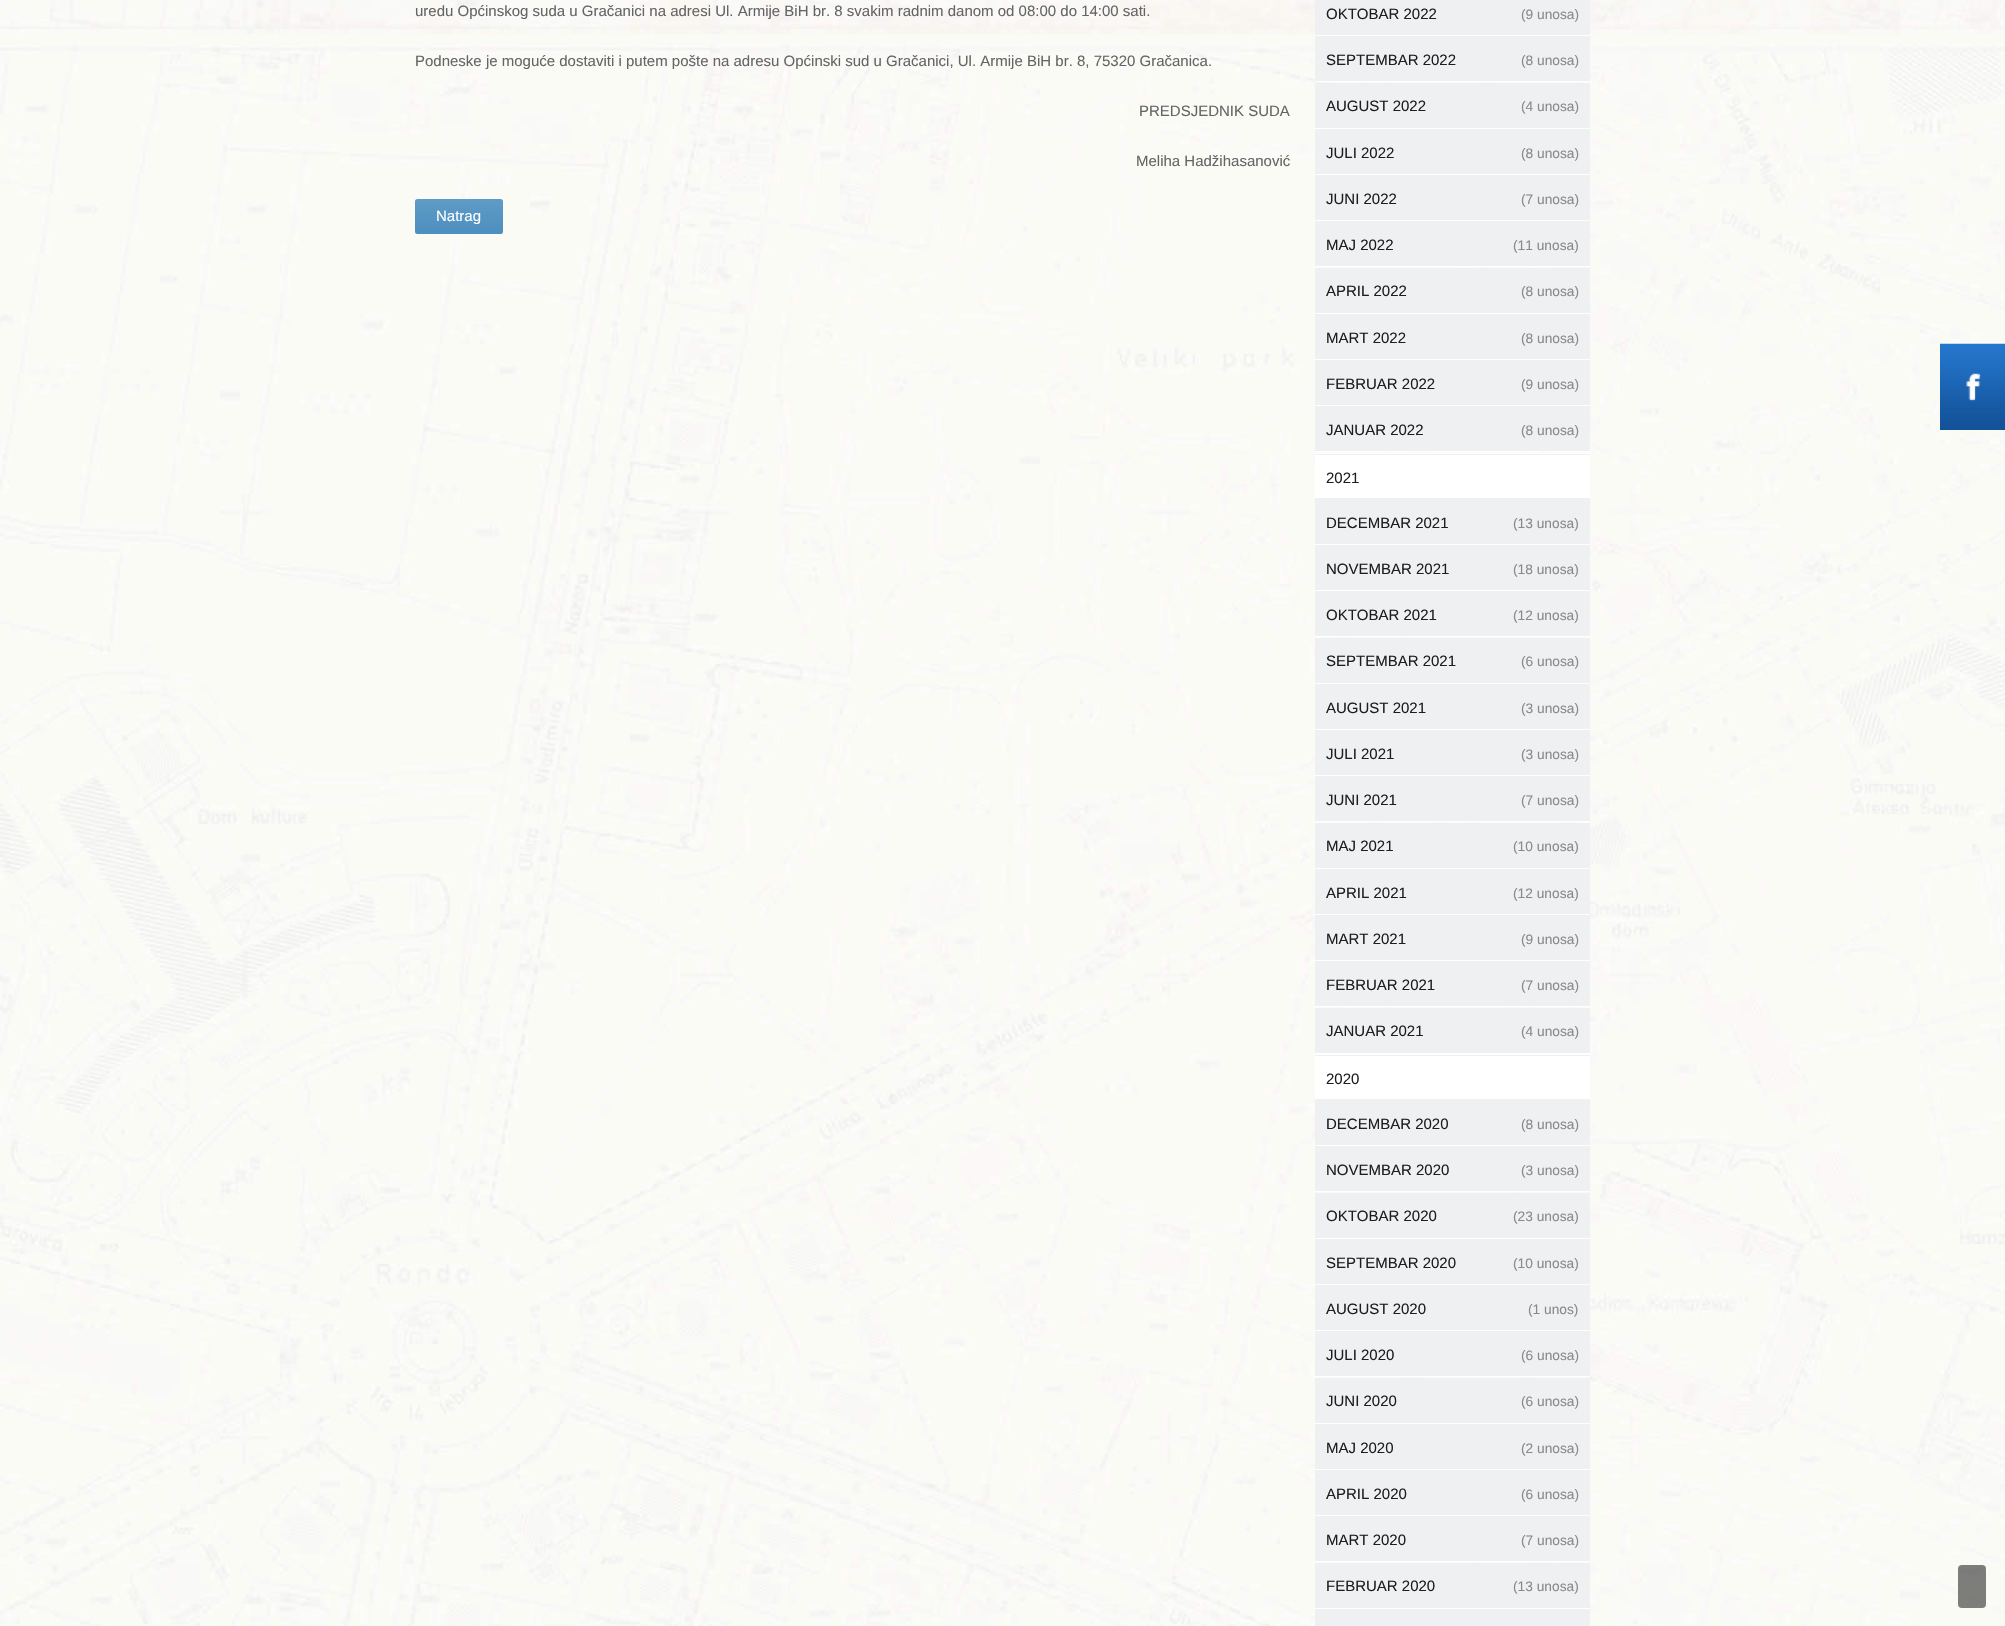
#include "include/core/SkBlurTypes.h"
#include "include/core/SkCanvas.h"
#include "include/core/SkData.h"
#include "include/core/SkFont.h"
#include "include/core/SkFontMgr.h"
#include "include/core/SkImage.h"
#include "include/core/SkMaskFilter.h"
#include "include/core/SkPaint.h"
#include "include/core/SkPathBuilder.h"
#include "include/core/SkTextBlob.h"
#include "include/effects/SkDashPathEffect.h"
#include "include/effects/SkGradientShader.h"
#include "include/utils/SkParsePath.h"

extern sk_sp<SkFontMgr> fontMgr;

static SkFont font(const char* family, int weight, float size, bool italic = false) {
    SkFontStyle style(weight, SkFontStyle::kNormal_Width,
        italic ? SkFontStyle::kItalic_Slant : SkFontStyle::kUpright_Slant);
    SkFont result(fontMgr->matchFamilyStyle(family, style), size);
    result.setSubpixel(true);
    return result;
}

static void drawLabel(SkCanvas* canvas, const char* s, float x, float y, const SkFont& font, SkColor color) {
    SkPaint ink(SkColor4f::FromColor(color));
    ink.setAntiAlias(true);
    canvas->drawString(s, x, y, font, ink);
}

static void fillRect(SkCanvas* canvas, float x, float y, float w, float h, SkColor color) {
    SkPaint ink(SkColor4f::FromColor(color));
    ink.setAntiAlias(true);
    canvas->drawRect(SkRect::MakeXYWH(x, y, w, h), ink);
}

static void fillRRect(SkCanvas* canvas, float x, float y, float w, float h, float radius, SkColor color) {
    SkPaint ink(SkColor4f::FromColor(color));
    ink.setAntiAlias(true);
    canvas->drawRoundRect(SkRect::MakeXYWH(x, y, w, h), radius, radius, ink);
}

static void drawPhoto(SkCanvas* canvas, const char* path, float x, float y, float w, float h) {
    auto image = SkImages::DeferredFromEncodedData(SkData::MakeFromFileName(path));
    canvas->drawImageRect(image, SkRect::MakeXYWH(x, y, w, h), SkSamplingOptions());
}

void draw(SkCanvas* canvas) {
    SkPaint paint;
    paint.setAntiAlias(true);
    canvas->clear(0xFFFFFFFF);
    drawPhoto(canvas, "assets/img1.png", 0, 0, 2005, 1626);
    SkFont font1 = font("Liberation Sans", 400, 15);
    drawLabel(canvas, "uredu Općinskog suda u Gračanici na adresi Ul. Armije BiH br. 8 svakim radnim danom od 08:00 do 14:00 sati.", 415, 16, font1, 0xFF656565);
    drawLabel(canvas, "Podneske je moguće dostaviti i putem pošte na adresu Općinski sud u Gračanici, Ul. Armije BiH br. 8, 75320 Gračanica.", 415, 66, font1, 0xFF656565);
    drawLabel(canvas, "PREDSJEDNIK SUDA", 1139, 116, font1, 0xFF656565);
    drawLabel(canvas, "Meliha Hadžihasanović", 1136, 166, font1, 0xFF656565);
    {
        const SkColor colors[] = {0xFF4C8FBF, 0xFF5F9BC6};
        const float stops[] = {0, 1};
        const SkPoint ends[] = {{415, 234}, {415, 199}};
        paint.setShader(SkGradientShader::MakeLinear(ends, colors, stops, 2, SkTileMode::kClamp));
        paint.setAlpha(255);
    }
    canvas->drawRoundRect(SkRect::MakeXYWH(415, 199, 88, 35), 2.5f, 2.5f, paint);
    drawLabel(canvas, "Natrag", 436, 221, font1, 0xFFFFFFFF);
    fillRect(canvas, 1315, 453, 275, 1, 0xFFFFFFFF);
    fillRect(canvas, 1315, 35, 275, 1, 0xFFFFFFFF);
    fillRect(canvas, 1315, 0, 275, 35, 0xFFEEF0F2);
    drawLabel(canvas, "OKTOBAR 2022", 1326, 19, font1, 0xFF1E1E1E);
    SkFont font2 = font("Liberation Sans", 400, 13.75f);
    drawLabel(canvas, "(9 unosa)", 1521, 19, font2, 0xFF8B8A8A);
    fillRect(canvas, 1315, 81, 275, 1, 0xFFFFFFFF);
    fillRect(canvas, 1315, 36, 275, 45, 0xFFEEF0F2);
    drawLabel(canvas, "SEPTEMBAR 2022", 1326, 65, font1, 0xFF1E1E1E);
    drawLabel(canvas, "(8 unosa)", 1521, 65, font2, 0xFF8B8A8A);
    fillRect(canvas, 1315, 128, 275, 1, 0xFFFFFFFF);
    fillRect(canvas, 1315, 83, 275, 45, 0xFFEEF0F2);
    drawLabel(canvas, "AUGUST 2022", 1326, 111, font1, 0xFF1E1E1E);
    drawLabel(canvas, "(4 unosa)", 1521, 111, font2, 0xFF8B8A8A);
    fillRect(canvas, 1315, 174, 275, 1, 0xFFFFFFFF);
    fillRect(canvas, 1315, 129, 275, 45, 0xFFEEF0F2);
    drawLabel(canvas, "JULI 2022", 1326, 158, font1, 0xFF1E1E1E);
    drawLabel(canvas, "(8 unosa)", 1521, 158, font2, 0xFF8B8A8A);
    fillRect(canvas, 1315, 220, 275, 1, 0xFFFFFFFF);
    fillRect(canvas, 1315, 175, 275, 45, 0xFFEEF0F2);
    drawLabel(canvas, "JUNI 2022", 1326, 204, font1, 0xFF1E1E1E);
    drawLabel(canvas, "(7 unosa)", 1521, 204, font2, 0xFF8B8A8A);
    fillRect(canvas, 1315, 266, 275, 1, 0xFFFFFFFF);
    fillRect(canvas, 1315, 221, 275, 45, 0xFFEEF0F2);
    drawLabel(canvas, "MAJ 2022", 1326, 250, font1, 0xFF1E1E1E);
    drawLabel(canvas, "(11 unosa)", 1513, 250, font2, 0xFF8B8A8A);
    fillRect(canvas, 1315, 313, 275, 1, 0xFFFFFFFF);
    fillRect(canvas, 1315, 268, 275, 45, 0xFFEEF0F2);
    drawLabel(canvas, "APRIL 2022", 1326, 296, font1, 0xFF1E1E1E);
    drawLabel(canvas, "(8 unosa)", 1521, 296, font2, 0xFF8B8A8A);
    fillRect(canvas, 1315, 359, 275, 1, 0xFFFFFFFF);
    fillRect(canvas, 1315, 314, 275, 45, 0xFFEEF0F2);
    drawLabel(canvas, "MART 2022", 1326, 343, font1, 0xFF1E1E1E);
    drawLabel(canvas, "(8 unosa)", 1521, 343, font2, 0xFF8B8A8A);
    fillRect(canvas, 1315, 405, 275, 1, 0xFFFFFFFF);
    fillRect(canvas, 1315, 360, 275, 45, 0xFFEEF0F2);
    drawLabel(canvas, "FEBRUAR 2022", 1326, 389, font1, 0xFF1E1E1E);
    drawLabel(canvas, "(9 unosa)", 1521, 389, font2, 0xFF8B8A8A);
    fillRect(canvas, 1315, 451, 275, 1, 0xFFFFFFFF);
    fillRect(canvas, 1315, 406, 275, 45, 0xFFEEF0F2);
    drawLabel(canvas, "JANUAR 2022", 1326, 435, font1, 0xFF1E1E1E);
    drawLabel(canvas, "(8 unosa)", 1521, 435, font2, 0xFF8B8A8A);
    fillRect(canvas, 1315, 1053, 275, 2, 0xFFFFFFFF);
    fillRect(canvas, 1315, 455, 275, 43, 0xFFFFFFFF);
    fillRect(canvas, 1315, 454, 275, 1, 0xFFEEF0F2);
    fillRect(canvas, 1315, 498, 275, 46, 0xFFEEF0F2);
    drawLabel(canvas, "2021", 1326, 483, font1, 0xFF1E1E1E);
    fillRect(canvas, 1315, 544, 275, 1, 0xFFFFFFFF);
    drawLabel(canvas, "DECEMBAR 2021", 1326, 528, font1, 0xFF1E1E1E);
    drawLabel(canvas, "(13 unosa)", 1513, 528, font2, 0xFF8B8A8A);
    fillRect(canvas, 1315, 590, 275, 1, 0xFFFFFFFF);
    fillRect(canvas, 1315, 545, 275, 45, 0xFFEEF0F2);
    drawLabel(canvas, "NOVEMBAR 2021", 1326, 574, font1, 0xFF1E1E1E);
    drawLabel(canvas, "(18 unosa)", 1513, 574, font2, 0xFF8B8A8A);
    fillRect(canvas, 1315, 636, 275, 1, 0xFFFFFFFF);
    fillRect(canvas, 1315, 591, 275, 45, 0xFFEEF0F2);
    drawLabel(canvas, "OKTOBAR 2021", 1326, 620, font1, 0xFF1E1E1E);
    drawLabel(canvas, "(12 unosa)", 1513, 620, font2, 0xFF8B8A8A);
    fillRect(canvas, 1315, 683, 275, 1, 0xFFFFFFFF);
    fillRect(canvas, 1315, 638, 275, 45, 0xFFEEF0F2);
    drawLabel(canvas, "SEPTEMBAR 2021", 1326, 666, font1, 0xFF1E1E1E);
    drawLabel(canvas, "(6 unosa)", 1521, 666, font2, 0xFF8B8A8A);
    fillRect(canvas, 1315, 729, 275, 1, 0xFFFFFFFF);
    fillRect(canvas, 1315, 684, 275, 45, 0xFFEEF0F2);
    drawLabel(canvas, "AUGUST 2021", 1326, 713, font1, 0xFF1E1E1E);
    drawLabel(canvas, "(3 unosa)", 1521, 713, font2, 0xFF8B8A8A);
    fillRect(canvas, 1315, 775, 275, 1, 0xFFFFFFFF);
    fillRect(canvas, 1315, 730, 275, 45, 0xFFEEF0F2);
    drawLabel(canvas, "JULI 2021", 1326, 759, font1, 0xFF1E1E1E);
    drawLabel(canvas, "(3 unosa)", 1521, 759, font2, 0xFF8B8A8A);
    fillRect(canvas, 1315, 821, 275, 1, 0xFFFFFFFF);
    fillRect(canvas, 1315, 776, 275, 45, 0xFFEEF0F2);
    drawLabel(canvas, "JUNI 2021", 1326, 805, font1, 0xFF1E1E1E);
    drawLabel(canvas, "(7 unosa)", 1521, 805, font2, 0xFF8B8A8A);
    fillRect(canvas, 1315, 868, 275, 1, 0xFFFFFFFF);
    fillRect(canvas, 1315, 823, 275, 45, 0xFFEEF0F2);
    drawLabel(canvas, "MAJ 2021", 1326, 851, font1, 0xFF1E1E1E);
    drawLabel(canvas, "(10 unosa)", 1513, 851, font2, 0xFF8B8A8A);
    fillRect(canvas, 1315, 914, 275, 1, 0xFFFFFFFF);
    fillRect(canvas, 1315, 869, 275, 45, 0xFFEEF0F2);
    drawLabel(canvas, "APRIL 2021", 1326, 898, font1, 0xFF1E1E1E);
    drawLabel(canvas, "(12 unosa)", 1513, 898, font2, 0xFF8B8A8A);
    fillRect(canvas, 1315, 960, 275, 1, 0xFFFFFFFF);
    fillRect(canvas, 1315, 915, 275, 45, 0xFFEEF0F2);
    drawLabel(canvas, "MART 2021", 1326, 944, font1, 0xFF1E1E1E);
    drawLabel(canvas, "(9 unosa)", 1521, 944, font2, 0xFF8B8A8A);
    fillRect(canvas, 1315, 1006, 275, 1, 0xFFFFFFFF);
    fillRect(canvas, 1315, 961, 275, 45, 0xFFEEF0F2);
    drawLabel(canvas, "FEBRUAR 2021", 1326, 990, font1, 0xFF1E1E1E);
    drawLabel(canvas, "(7 unosa)", 1521, 990, font2, 0xFF8B8A8A);
    fillRect(canvas, 1315, 1008, 275, 45, 0xFFEEF0F2);
    drawLabel(canvas, "JANUAR 2021", 1326, 1036, font1, 0xFF1E1E1E);
    drawLabel(canvas, "(4 unosa)", 1521, 1036, font2, 0xFF8B8A8A);
    fillRect(canvas, 1315, 1056, 275, 43, 0xFFFFFFFF);
    fillRect(canvas, 1315, 1055, 275, 1, 0xFFEEF0F2);
    fillRect(canvas, 1315, 1099, 275, 46, 0xFFEEF0F2);
    drawLabel(canvas, "2020", 1326, 1084, font1, 0xFF1E1E1E);
    fillRect(canvas, 1315, 1145, 275, 1, 0xFFFFFFFF);
    drawLabel(canvas, "DECEMBAR 2020", 1326, 1129, font1, 0xFF1E1E1E);
    drawLabel(canvas, "(8 unosa)", 1521, 1129, font2, 0xFF8B8A8A);
    fillRect(canvas, 1315, 1191, 275, 1, 0xFFFFFFFF);
    fillRect(canvas, 1315, 1146, 275, 45, 0xFFEEF0F2);
    drawLabel(canvas, "NOVEMBAR 2020", 1326, 1175, font1, 0xFF1E1E1E);
    drawLabel(canvas, "(3 unosa)", 1521, 1175, font2, 0xFF8B8A8A);
    fillRect(canvas, 1315, 1238, 275, 1, 0xFFFFFFFF);
    fillRect(canvas, 1315, 1193, 275, 45, 0xFFEEF0F2);
    drawLabel(canvas, "OKTOBAR 2020", 1326, 1221, font1, 0xFF1E1E1E);
    drawLabel(canvas, "(23 unosa)", 1513, 1221, font2, 0xFF8B8A8A);
    fillRect(canvas, 1315, 1284, 275, 1, 0xFFFFFFFF);
    fillRect(canvas, 1315, 1239, 275, 45, 0xFFEEF0F2);
    drawLabel(canvas, "SEPTEMBAR 2020", 1326, 1268, font1, 0xFF1E1E1E);
    drawLabel(canvas, "(10 unosa)", 1513, 1268, font2, 0xFF8B8A8A);
    fillRect(canvas, 1315, 1330, 275, 1, 0xFFFFFFFF);
    fillRect(canvas, 1315, 1285, 275, 45, 0xFFEEF0F2);
    drawLabel(canvas, "AUGUST 2020", 1326, 1314, font1, 0xFF1E1E1E);
    drawLabel(canvas, "(1 unos)", 1528, 1314, font2, 0xFF8B8A8A);
    fillRect(canvas, 1315, 1376, 275, 1, 0xFFFFFFFF);
    fillRect(canvas, 1315, 1331, 275, 45, 0xFFEEF0F2);
    drawLabel(canvas, "JULI 2020", 1326, 1360, font1, 0xFF1E1E1E);
    drawLabel(canvas, "(6 unosa)", 1521, 1360, font2, 0xFF8B8A8A);
    fillRect(canvas, 1315, 1423, 275, 1, 0xFFFFFFFF);
    fillRect(canvas, 1315, 1378, 275, 45, 0xFFEEF0F2);
    drawLabel(canvas, "JUNI 2020", 1326, 1406, font1, 0xFF1E1E1E);
    drawLabel(canvas, "(6 unosa)", 1521, 1406, font2, 0xFF8B8A8A);
    fillRect(canvas, 1315, 1469, 275, 1, 0xFFFFFFFF);
    fillRect(canvas, 1315, 1424, 275, 45, 0xFFEEF0F2);
    drawLabel(canvas, "MAJ 2020", 1326, 1453, font1, 0xFF1E1E1E);
    drawLabel(canvas, "(2 unosa)", 1521, 1453, font2, 0xFF8B8A8A);
    fillRect(canvas, 1315, 1515, 275, 1, 0xFFFFFFFF);
    fillRect(canvas, 1315, 1470, 275, 45, 0xFFEEF0F2);
    drawLabel(canvas, "APRIL 2020", 1326, 1499, font1, 0xFF1E1E1E);
    drawLabel(canvas, "(6 unosa)", 1521, 1499, font2, 0xFF8B8A8A);
    fillRect(canvas, 1315, 1561, 275, 1, 0xFFFFFFFF);
    fillRect(canvas, 1315, 1516, 275, 45, 0xFFEEF0F2);
    drawLabel(canvas, "MART 2020", 1326, 1545, font1, 0xFF1E1E1E);
    drawLabel(canvas, "(7 unosa)", 1521, 1545, font2, 0xFF8B8A8A);
    fillRect(canvas, 1315, 1608, 275, 1, 0xFFFFFFFF);
    fillRect(canvas, 1315, 1563, 275, 45, 0xFFEEF0F2);
    drawLabel(canvas, "FEBRUAR 2020", 1326, 1591, font1, 0xFF1E1E1E);
    drawLabel(canvas, "(13 unosa)", 1513, 1591, font2, 0xFF8B8A8A);
    fillRect(canvas, 1315, 1609, 275, 17, 0xFFEEF0F2);
    drawPhoto(canvas, "assets/img2.png", 1940, 343, 65, 87);
    fillRRect(canvas, 1958, 1565, 28, 43, 4, 0x80000000);
}
